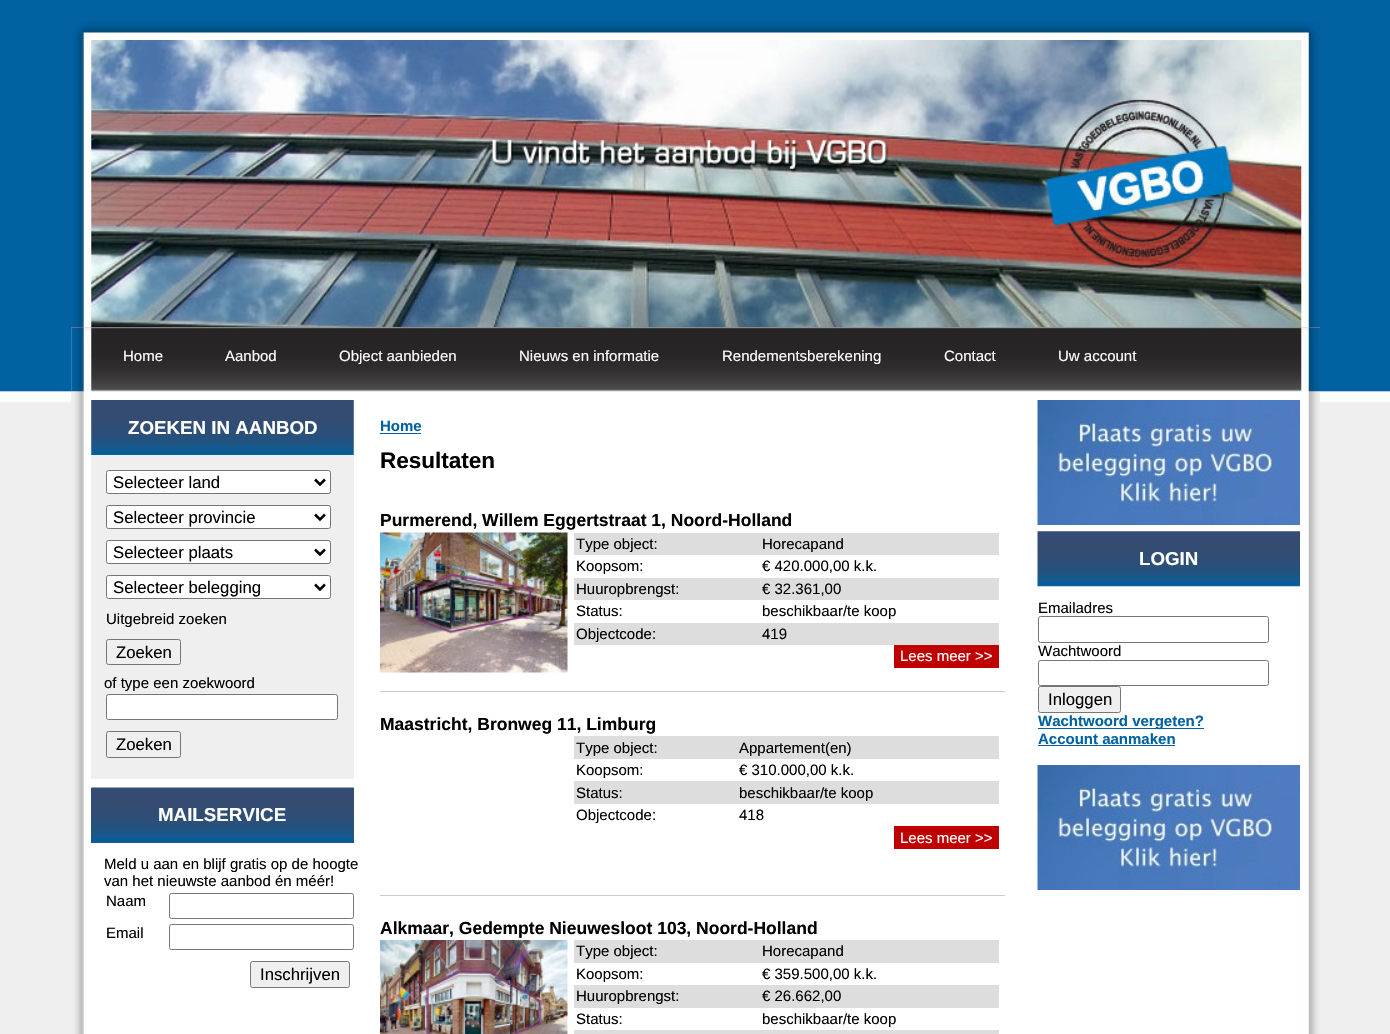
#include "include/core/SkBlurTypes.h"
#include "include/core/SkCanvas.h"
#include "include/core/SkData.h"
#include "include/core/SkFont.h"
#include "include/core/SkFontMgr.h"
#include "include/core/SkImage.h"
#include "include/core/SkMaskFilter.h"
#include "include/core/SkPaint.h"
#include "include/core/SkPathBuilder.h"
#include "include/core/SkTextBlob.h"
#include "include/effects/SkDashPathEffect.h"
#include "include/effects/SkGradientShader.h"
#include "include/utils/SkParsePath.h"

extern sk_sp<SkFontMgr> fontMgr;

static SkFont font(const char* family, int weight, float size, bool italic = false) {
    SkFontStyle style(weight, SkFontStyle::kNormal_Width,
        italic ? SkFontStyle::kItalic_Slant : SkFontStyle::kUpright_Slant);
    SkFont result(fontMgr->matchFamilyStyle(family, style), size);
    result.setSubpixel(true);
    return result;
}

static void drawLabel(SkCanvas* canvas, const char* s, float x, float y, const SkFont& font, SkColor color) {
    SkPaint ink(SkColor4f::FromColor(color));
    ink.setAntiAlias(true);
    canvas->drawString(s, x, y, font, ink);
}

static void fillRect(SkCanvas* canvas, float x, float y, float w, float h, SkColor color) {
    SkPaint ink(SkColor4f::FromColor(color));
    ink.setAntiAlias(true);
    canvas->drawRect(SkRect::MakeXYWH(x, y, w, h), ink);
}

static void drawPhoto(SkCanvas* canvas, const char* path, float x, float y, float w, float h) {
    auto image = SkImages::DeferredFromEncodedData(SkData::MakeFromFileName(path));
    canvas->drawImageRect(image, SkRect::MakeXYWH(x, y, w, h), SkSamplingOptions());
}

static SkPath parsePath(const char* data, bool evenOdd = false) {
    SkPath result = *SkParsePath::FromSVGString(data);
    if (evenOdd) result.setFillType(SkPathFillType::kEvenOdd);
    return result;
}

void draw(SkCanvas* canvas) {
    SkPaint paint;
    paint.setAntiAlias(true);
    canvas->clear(0xFFEFEFEF);
    drawPhoto(canvas, "assets/img1.png", 0, 0, 1390, 403);
    drawPhoto(canvas, "assets/img2.png", 73, 21, 1247, 307);
    drawPhoto(canvas, "assets/img3.png", 91, 40, 1211, 288);
    drawPhoto(canvas, "assets/img4.png", 71, 327, 1249, 707);
    drawPhoto(canvas, "assets/img5.png", 71, 327, 1249, 65);
    drawPhoto(canvas, "assets/img6.png", 91, 327, 1211, 65);
    SkFont font1 = font("Liberation Sans", 400, 15);
    drawLabel(canvas, "Home", 123, 361, font1, 0xFFFFFFFF);
    drawLabel(canvas, "Aanbod", 225, 361, font1, 0xFFFFFFFF);
    drawLabel(canvas, "Object aanbieden", 339, 361, font1, 0xFFFFFFFF);
    drawLabel(canvas, "Nieuws en informatie", 519, 361, font1, 0xFFFFFFFF);
    drawLabel(canvas, "Rendementsberekening", 722, 361, font1, 0xFFFFFFFF);
    drawLabel(canvas, "Contact", 944, 361, font1, 0xFFFFFFFF);
    drawLabel(canvas, "Uw account", 1058, 361, font1, 0xFFFFFFFF);
    fillRect(canvas, 91, 400, 263, 379, 0xFFEFEFEF);
    drawPhoto(canvas, "assets/img7.png", 91, 400, 263, 55);
    SkFont font2 = font("Liberation Sans", 700, 18.75f);
    drawLabel(canvas, "ZOEKEN IN AANBOD", 128, 434, font2, 0xFFFFFFFF);
    paint.setColor(0xFFFFFFFF);
    canvas->drawRoundRect(SkRect::MakeXYWH(106.5f, 470.5f, 224, 23), 2, 2, paint);
    paint.setStroke(true);
    paint.setStrokeWidth(1);
    paint.setColor(0xFF767676);
    canvas->drawRoundRect(SkRect::MakeXYWH(106.5f, 470.5f, 224, 23), 2, 2, paint);
    paint.setStrokeWidth(2.5f);
    paint.setColor(0xFF000000);
    canvas->drawPath(parsePath("M315 479.5L320 484.5L325 479.5"), paint);
    SkFont font3 = font("Liberation Sans", 400, 16.75f);
    drawLabel(canvas, "Selecteer land", 113, 488, font3, 0xFF000000);
    paint.setStroke(false);
    paint.setColor(0xFFFFFFFF);
    canvas->drawRoundRect(SkRect::MakeXYWH(106.5f, 505.5f, 224, 23), 2, 2, paint);
    paint.setStroke(true);
    paint.setStrokeWidth(1);
    paint.setColor(0xFF767676);
    canvas->drawRoundRect(SkRect::MakeXYWH(106.5f, 505.5f, 224, 23), 2, 2, paint);
    paint.setStrokeWidth(2.5f);
    paint.setColor(0xFF000000);
    canvas->drawPath(parsePath("M315 514.5L320 519.5L325 514.5"), paint);
    drawLabel(canvas, "Selecteer provincie", 113, 523, font3, 0xFF000000);
    paint.setStroke(false);
    paint.setColor(0xFFFFFFFF);
    canvas->drawRoundRect(SkRect::MakeXYWH(106.5f, 540.5f, 224, 23), 2, 2, paint);
    paint.setStroke(true);
    paint.setStrokeWidth(1);
    paint.setColor(0xFF767676);
    canvas->drawRoundRect(SkRect::MakeXYWH(106.5f, 540.5f, 224, 23), 2, 2, paint);
    paint.setStrokeWidth(2.5f);
    paint.setColor(0xFF000000);
    canvas->drawPath(parsePath("M315 549.5L320 554.5L325 549.5"), paint);
    drawLabel(canvas, "Selecteer plaats", 113, 558, font3, 0xFF000000);
    paint.setStroke(false);
    paint.setColor(0xFFFFFFFF);
    canvas->drawRoundRect(SkRect::MakeXYWH(106.5f, 575.5f, 224, 23), 2, 2, paint);
    paint.setStroke(true);
    paint.setStrokeWidth(1);
    paint.setColor(0xFF767676);
    canvas->drawRoundRect(SkRect::MakeXYWH(106.5f, 575.5f, 224, 23), 2, 2, paint);
    paint.setStrokeWidth(2.5f);
    paint.setColor(0xFF000000);
    canvas->drawPath(parsePath("M315 584.5L320 589.5L325 584.5"), paint);
    drawLabel(canvas, "Selecteer belegging", 113, 593, font3, 0xFF000000);
    drawLabel(canvas, "Uitgebreid zoeken", 106, 624, font1, 0xFF000000);
    paint.setStrokeWidth(1);
    paint.setColor(0xFF767676);
    canvas->drawRoundRect(SkRect::MakeXYWH(106.5f, 639.5f, 74, 25), 2, 2, paint);
    drawLabel(canvas, "Zoeken", 116, 658, font3, 0xFF000000);
    drawLabel(canvas, "of type een zoekwoord", 104, 688, font1, 0xFF000000);
    paint.setStroke(false);
    paint.setColor(0xFFFFFFFF);
    canvas->drawRoundRect(SkRect::MakeXYWH(106.5f, 694.5f, 231, 25), 2, 2, paint);
    paint.setStroke(true);
    paint.setColor(0xFF767676);
    canvas->drawRoundRect(SkRect::MakeXYWH(106.5f, 694.5f, 231, 25), 2, 2, paint);
    canvas->drawRoundRect(SkRect::MakeXYWH(106.5f, 731.5f, 74, 26), 2, 2, paint);
    drawLabel(canvas, "Zoeken", 116, 750, font3, 0xFF000000);
    fillRect(canvas, 91, 788, 263, 55, 0xFF2D4E77);
    drawPhoto(canvas, "assets/img8.png", 91, 787, 263, 56);
    drawLabel(canvas, "MAILSERVICE", 158, 821, font2, 0xFFFFFFFF);
    drawLabel(canvas, "Meld u aan en blijf gratis op de hoogte", 104, 869, font1, 0xFF000000);
    drawLabel(canvas, "van het nieuwste aanbod én méér!", 104, 886, font1, 0xFF000000);
    drawLabel(canvas, "Naam", 106, 906, font1, 0xFF000000);
    canvas->drawRoundRect(SkRect::MakeXYWH(169.5f, 893.5f, 184, 25), 2, 2, paint);
    drawLabel(canvas, "Email", 106, 938, font1, 0xFF000000);
    canvas->drawRoundRect(SkRect::MakeXYWH(169.5f, 924.5f, 184, 25), 2, 2, paint);
    paint.setStroke(false);
    paint.setColor(0xFFEFEFEF);
    canvas->drawRoundRect(SkRect::MakeXYWH(250.5f, 961.5f, 99, 26), 2, 2, paint);
    paint.setStroke(true);
    paint.setColor(0xFF767676);
    canvas->drawRoundRect(SkRect::MakeXYWH(250.5f, 961.5f, 99, 26), 2, 2, paint);
    drawLabel(canvas, "Inschrijven", 260, 980, font3, 0xFF000000);
    SkFont font4 = font("Liberation Sans", 700, 15);
    drawLabel(canvas, "Home", 380, 431, font4, 0xFF0061A0);
    fillRect(canvas, 380, 433, 41, 1, 0xFF0061A0);
    SkFont font5 = font("Liberation Sans", 700, 22.5f);
    drawLabel(canvas, "Resultaten", 380, 468, font5, 0xFF000000);
    fillRect(canvas, 380, 691, 625, 1, 0xFFCCCCCC);
    SkFont font6 = font("Liberation Sans", 700, 17.5f);
    drawLabel(canvas, "Purmerend, Willem Eggertstraat 1, Noord-Holland", 380, 526, font6, 0xFF000000);
    drawPhoto(canvas, "assets/img9.png", 380, 532, 188, 141);
    fillRect(canvas, 574, 533, 425, 22, 0xFFDDDDDD);
    drawLabel(canvas, "Type object:", 576, 549, font1, 0xFF000000);
    drawLabel(canvas, "Horecapand", 762, 549, font1, 0xFF000000);
    drawLabel(canvas, "Koopsom:", 576, 571, font1, 0xFF000000);
    drawLabel(canvas, "€ 420.000,00 k.k.", 762, 571, font1, 0xFF000000);
    fillRect(canvas, 574, 578, 425, 22, 0xFFDDDDDD);
    drawLabel(canvas, "Huuropbrengst:", 576, 594, font1, 0xFF000000);
    drawLabel(canvas, "€ 32.361,00", 762, 594, font1, 0xFF000000);
    drawLabel(canvas, "Status:", 576, 616, font1, 0xFF000000);
    drawLabel(canvas, "beschikbaar/te koop", 762, 616, font1, 0xFF000000);
    fillRect(canvas, 574, 623, 425, 22, 0xFFDDDDDD);
    drawLabel(canvas, "Objectcode:", 576, 639, font1, 0xFF000000);
    drawLabel(canvas, "419", 762, 639, font1, 0xFF000000);
    fillRect(canvas, 894, 645, 105, 23, 0xFFC00000);
    drawLabel(canvas, "Lees meer >>", 900, 661, font1, 0xFFFFFFFF);
    fillRect(canvas, 380, 895, 625, 1, 0xFFCCCCCC);
    drawLabel(canvas, "Maastricht, Bronweg 11, Limburg", 380, 730, font6, 0xFF000000);
    fillRect(canvas, 574, 736, 425, 23, 0xFFDDDDDD);
    drawLabel(canvas, "Type object:", 576, 753, font1, 0xFF000000);
    drawLabel(canvas, "Appartement(en)", 739, 753, font1, 0xFF000000);
    drawLabel(canvas, "Koopsom:", 576, 775, font1, 0xFF000000);
    drawLabel(canvas, "€ 310.000,00 k.k.", 739, 775, font1, 0xFF000000);
    fillRect(canvas, 574, 781, 425, 23, 0xFFDDDDDD);
    drawLabel(canvas, "Status:", 576, 798, font1, 0xFF000000);
    drawLabel(canvas, "beschikbaar/te koop", 739, 798, font1, 0xFF000000);
    drawLabel(canvas, "Objectcode:", 576, 820, font1, 0xFF000000);
    drawLabel(canvas, "418", 739, 820, font1, 0xFF000000);
    fillRect(canvas, 894, 826, 105, 23, 0xFFC00000);
    drawLabel(canvas, "Lees meer >>", 900, 843, font1, 0xFFFFFFFF);
    drawLabel(canvas, "Alkmaar, Gedempte Nieuwesloot 103, Noord-Holland", 380, 934, font6, 0xFF000000);
    drawPhoto(canvas, "assets/img10.png", 380, 940, 188, 94);
    fillRect(canvas, 574, 940, 425, 23, 0xFFDDDDDD);
    drawLabel(canvas, "Type object:", 576, 956, font1, 0xFF000000);
    drawLabel(canvas, "Horecapand", 762, 956, font1, 0xFF000000);
    drawLabel(canvas, "Koopsom:", 576, 979, font1, 0xFF000000);
    drawLabel(canvas, "€ 359.500,00 k.k.", 762, 979, font1, 0xFF000000);
    fillRect(canvas, 574, 985, 425, 23, 0xFFDDDDDD);
    drawLabel(canvas, "Huuropbrengst:", 576, 1001, font1, 0xFF000000);
    drawLabel(canvas, "€ 26.662,00", 762, 1001, font1, 0xFF000000);
    drawLabel(canvas, "Status:", 576, 1024, font1, 0xFF000000);
    drawLabel(canvas, "beschikbaar/te koop", 762, 1024, font1, 0xFF000000);
    fillRect(canvas, 574, 1030, 425, 4, 0xFFDDDDDD);
    drawPhoto(canvas, "assets/img11.png", 1037, 400, 263, 125);
    drawPhoto(canvas, "assets/img12.png", 1037, 531, 263, 56);
    drawLabel(canvas, "LOGIN", 1139, 565, font2, 0xFFFFFFFF);
    drawLabel(canvas, "Emailadres", 1038, 613, font1, 0xFF000000);
    canvas->drawRoundRect(SkRect::MakeXYWH(1038.5f, 616.5f, 230, 26), 2, 2, paint);
    drawLabel(canvas, "Wachtwoord", 1038, 656, font1, 0xFF000000);
    canvas->drawRoundRect(SkRect::MakeXYWH(1038.5f, 660.5f, 230, 25), 2, 2, paint);
    paint.setStroke(false);
    paint.setColor(0xFFEFEFEF);
    canvas->drawRoundRect(SkRect::MakeXYWH(1038.5f, 686.5f, 82, 26), 2, 2, paint);
    paint.setStroke(true);
    paint.setColor(0xFF767676);
    canvas->drawRoundRect(SkRect::MakeXYWH(1038.5f, 686.5f, 82, 26), 2, 2, paint);
    drawLabel(canvas, "Inloggen", 1048, 705, font3, 0xFF000000);
    fillRect(canvas, 1038, 728, 166, 1, 0xFF0061A0);
    drawLabel(canvas, "Wachtwoord vergeten?", 1038, 726, font4, 0xFF0061A0);
    drawLabel(canvas, "Account aanmaken", 1038, 744, font4, 0xFF0061A0);
    fillRect(canvas, 1038, 745, 137, 1, 0xFF0061A0);
    drawPhoto(canvas, "assets/img11.png", 1037, 765, 263, 125);
}
